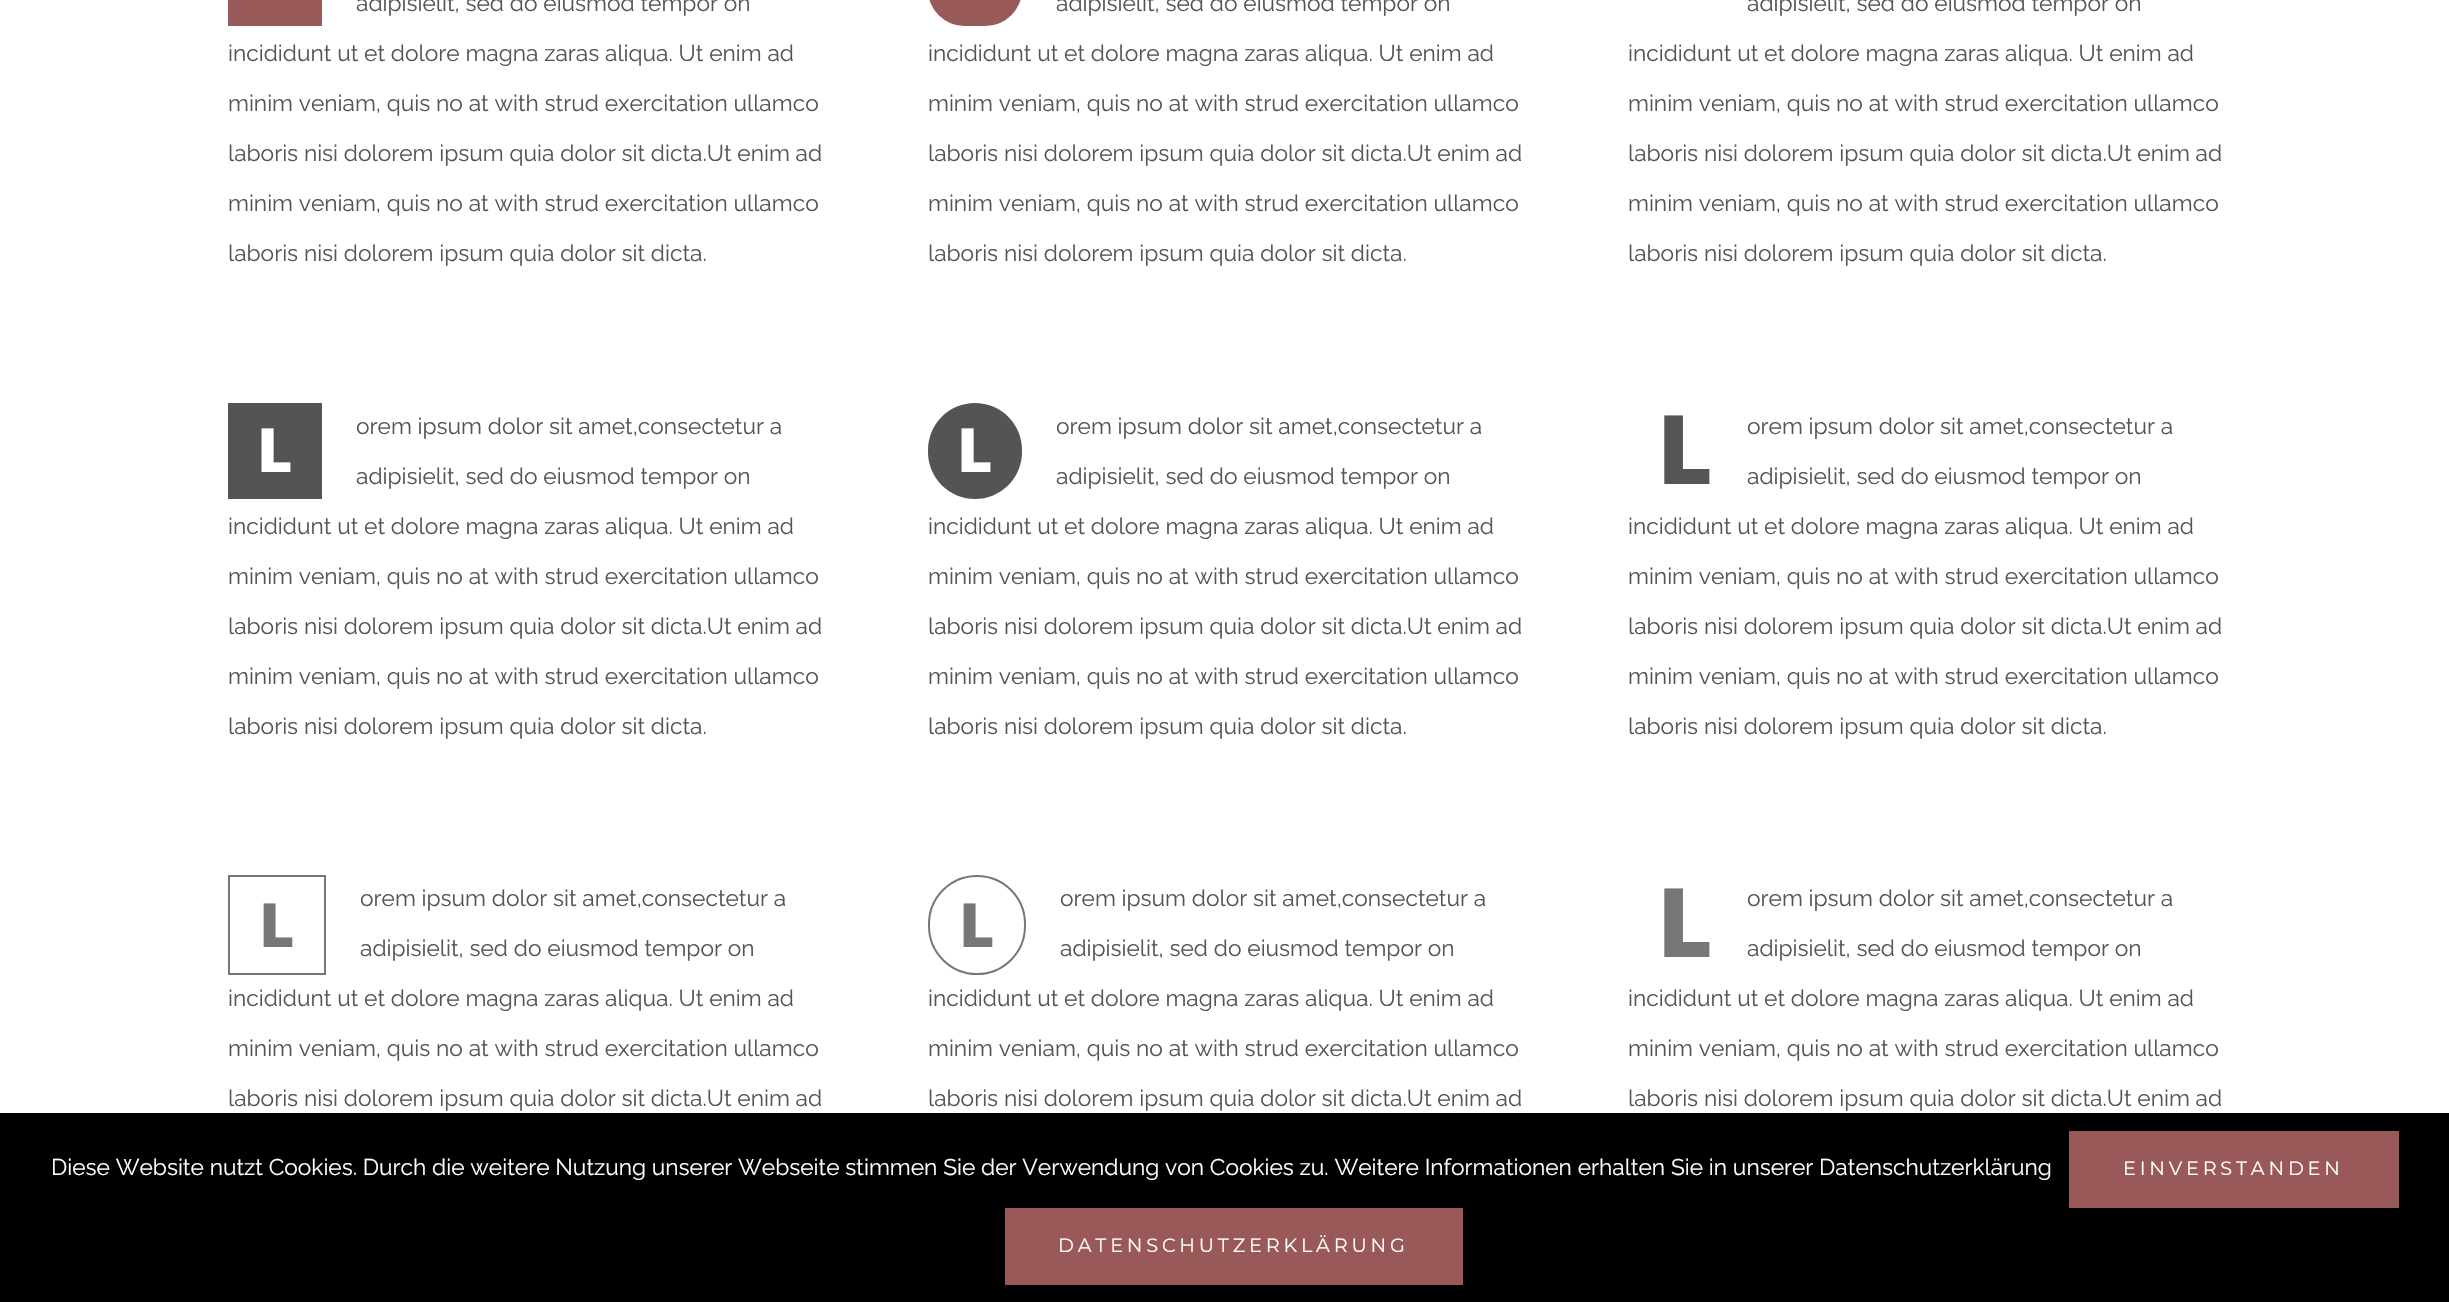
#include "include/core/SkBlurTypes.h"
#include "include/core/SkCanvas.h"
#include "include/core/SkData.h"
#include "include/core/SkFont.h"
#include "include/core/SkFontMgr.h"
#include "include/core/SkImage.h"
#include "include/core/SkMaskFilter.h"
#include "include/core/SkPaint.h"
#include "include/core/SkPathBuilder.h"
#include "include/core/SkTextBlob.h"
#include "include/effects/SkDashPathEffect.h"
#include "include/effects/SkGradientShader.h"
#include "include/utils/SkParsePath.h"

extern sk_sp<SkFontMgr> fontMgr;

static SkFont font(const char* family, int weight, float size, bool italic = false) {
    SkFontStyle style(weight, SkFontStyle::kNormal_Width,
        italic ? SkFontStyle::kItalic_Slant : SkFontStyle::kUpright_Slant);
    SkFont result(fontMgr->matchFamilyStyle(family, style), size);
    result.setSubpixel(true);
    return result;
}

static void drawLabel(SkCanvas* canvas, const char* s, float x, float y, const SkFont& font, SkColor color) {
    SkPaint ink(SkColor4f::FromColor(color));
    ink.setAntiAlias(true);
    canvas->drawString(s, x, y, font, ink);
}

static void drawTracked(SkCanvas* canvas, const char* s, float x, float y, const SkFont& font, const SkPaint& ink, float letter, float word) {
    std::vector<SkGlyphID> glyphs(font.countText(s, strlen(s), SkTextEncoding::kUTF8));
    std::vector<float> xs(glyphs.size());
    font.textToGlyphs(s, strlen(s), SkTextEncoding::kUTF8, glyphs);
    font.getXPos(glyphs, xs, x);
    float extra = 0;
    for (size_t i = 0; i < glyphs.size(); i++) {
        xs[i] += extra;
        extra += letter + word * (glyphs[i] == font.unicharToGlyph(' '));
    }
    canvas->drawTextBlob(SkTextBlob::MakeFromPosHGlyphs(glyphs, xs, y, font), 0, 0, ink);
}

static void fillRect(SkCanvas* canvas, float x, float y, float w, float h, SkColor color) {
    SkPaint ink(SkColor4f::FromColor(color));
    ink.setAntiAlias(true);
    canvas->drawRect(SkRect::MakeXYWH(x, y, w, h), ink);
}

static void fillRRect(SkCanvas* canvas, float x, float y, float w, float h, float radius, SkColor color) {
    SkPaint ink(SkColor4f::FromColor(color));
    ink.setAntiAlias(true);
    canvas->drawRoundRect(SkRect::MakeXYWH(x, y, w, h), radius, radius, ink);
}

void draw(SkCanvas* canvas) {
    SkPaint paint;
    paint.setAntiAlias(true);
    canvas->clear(0xFFFFFFFF);
    fillRect(canvas, 228, 0, 94, 26, 0xFF995958);
    SkFont font1 = font("Raleway", 400, 22.75f);
    drawLabel(canvas, "adipisielit, sed do eiusmod tempor on", 356, 11, font1, 0xFF555555);
    drawLabel(canvas, "incididunt ut et dolore magna zaras aliqua. Ut enim ad", 228, 61, font1, 0xFF555555);
    drawLabel(canvas, "minim veniam, quis no at with strud exercitation ullamco", 228, 111, font1, 0xFF555555);
    drawLabel(canvas, "laboris nisi dolorem ipsum quia dolor sit dicta.Ut enim ad", 228, 161, font1, 0xFF555555);
    drawLabel(canvas, "minim veniam, quis no at with strud exercitation ullamco", 228, 211, font1, 0xFF555555);
    drawLabel(canvas, "laboris nisi dolorem ipsum quia dolor sit dicta.", 228, 261, font1, 0xFF555555);
    fillRRect(canvas, 928, -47, 94, 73, 47, 0xFF995958);
    drawLabel(canvas, "adipisielit, sed do eiusmod tempor on", 1056, 11, font1, 0xFF555555);
    drawLabel(canvas, "incididunt ut et dolore magna zaras aliqua. Ut enim ad", 928, 61, font1, 0xFF555555);
    drawLabel(canvas, "minim veniam, quis no at with strud exercitation ullamco", 928, 111, font1, 0xFF555555);
    drawLabel(canvas, "laboris nisi dolorem ipsum quia dolor sit dicta.Ut enim ad", 928, 161, font1, 0xFF555555);
    drawLabel(canvas, "minim veniam, quis no at with strud exercitation ullamco", 928, 211, font1, 0xFF555555);
    drawLabel(canvas, "laboris nisi dolorem ipsum quia dolor sit dicta.", 928, 261, font1, 0xFF555555);
    drawLabel(canvas, "adipisielit, sed do eiusmod tempor on", 1747, 11, font1, 0xFF555555);
    drawLabel(canvas, "incididunt ut et dolore magna zaras aliqua. Ut enim ad", 1628, 61, font1, 0xFF555555);
    drawLabel(canvas, "minim veniam, quis no at with strud exercitation ullamco", 1628, 111, font1, 0xFF555555);
    drawLabel(canvas, "laboris nisi dolorem ipsum quia dolor sit dicta.Ut enim ad", 1628, 161, font1, 0xFF555555);
    drawLabel(canvas, "minim veniam, quis no at with strud exercitation ullamco", 1628, 211, font1, 0xFF555555);
    drawLabel(canvas, "laboris nisi dolorem ipsum quia dolor sit dicta.", 1628, 261, font1, 0xFF555555);
    fillRect(canvas, 228, 403, 94, 96, 0xFF545454);
    SkFont font2 = font("Noto Sans", 900, 61);
    drawLabel(canvas, "L", 257, 472, font2, 0xFFFFFFFF);
    drawLabel(canvas, "orem ipsum dolor sit amet,consectetur a", 356, 434, font1, 0xFF555555);
    drawLabel(canvas, "adipisielit, sed do eiusmod tempor on", 356, 484, font1, 0xFF555555);
    drawLabel(canvas, "incididunt ut et dolore magna zaras aliqua. Ut enim ad", 228, 534, font1, 0xFF555555);
    drawLabel(canvas, "minim veniam, quis no at with strud exercitation ullamco", 228, 584, font1, 0xFF555555);
    drawLabel(canvas, "laboris nisi dolorem ipsum quia dolor sit dicta.Ut enim ad", 228, 634, font1, 0xFF555555);
    drawLabel(canvas, "minim veniam, quis no at with strud exercitation ullamco", 228, 684, font1, 0xFF555555);
    drawLabel(canvas, "laboris nisi dolorem ipsum quia dolor sit dicta.", 228, 734, font1, 0xFF555555);
    fillRRect(canvas, 928, 403, 94, 96, 47, 0xFF545454);
    drawLabel(canvas, "L", 957, 472, font2, 0xFFFFFFFF);
    drawLabel(canvas, "orem ipsum dolor sit amet,consectetur a", 1056, 434, font1, 0xFF555555);
    drawLabel(canvas, "adipisielit, sed do eiusmod tempor on", 1056, 484, font1, 0xFF555555);
    drawLabel(canvas, "incididunt ut et dolore magna zaras aliqua. Ut enim ad", 928, 534, font1, 0xFF555555);
    drawLabel(canvas, "minim veniam, quis no at with strud exercitation ullamco", 928, 584, font1, 0xFF555555);
    drawLabel(canvas, "laboris nisi dolorem ipsum quia dolor sit dicta.Ut enim ad", 928, 634, font1, 0xFF555555);
    drawLabel(canvas, "minim veniam, quis no at with strud exercitation ullamco", 928, 684, font1, 0xFF555555);
    drawLabel(canvas, "laboris nisi dolorem ipsum quia dolor sit dicta.", 928, 734, font1, 0xFF555555);
    SkFont font3 = font("Noto Sans", 900, 96);
    drawLabel(canvas, "L", 1657, 484, font3, 0xFF555555);
    drawLabel(canvas, "orem ipsum dolor sit amet,consectetur a", 1747, 434, font1, 0xFF555555);
    drawLabel(canvas, "adipisielit, sed do eiusmod tempor on", 1747, 484, font1, 0xFF555555);
    drawLabel(canvas, "incididunt ut et dolore magna zaras aliqua. Ut enim ad", 1628, 534, font1, 0xFF555555);
    drawLabel(canvas, "minim veniam, quis no at with strud exercitation ullamco", 1628, 584, font1, 0xFF555555);
    drawLabel(canvas, "laboris nisi dolorem ipsum quia dolor sit dicta.Ut enim ad", 1628, 634, font1, 0xFF555555);
    drawLabel(canvas, "minim veniam, quis no at with strud exercitation ullamco", 1628, 684, font1, 0xFF555555);
    drawLabel(canvas, "laboris nisi dolorem ipsum quia dolor sit dicta.", 1628, 734, font1, 0xFF555555);
    drawLabel(canvas, "orem ipsum dolor sit amet,consectetur a", 360, 906, font1, 0xFF555555);
    paint.setStroke(true);
    paint.setStrokeWidth(2);
    paint.setColor(0xFF777777);
    canvas->drawRect(SkRect::MakeXYWH(229, 876, 96, 98), paint);
    drawLabel(canvas, "L", 259, 947, font2, 0xFF777777);
    drawLabel(canvas, "adipisielit, sed do eiusmod tempor on", 360, 956, font1, 0xFF555555);
    drawLabel(canvas, "incididunt ut et dolore magna zaras aliqua. Ut enim ad", 228, 1006, font1, 0xFF555555);
    drawLabel(canvas, "minim veniam, quis no at with strud exercitation ullamco", 228, 1056, font1, 0xFF555555);
    drawLabel(canvas, "laboris nisi dolorem ipsum quia dolor sit dicta.Ut enim ad", 228, 1106, font1, 0xFF555555);
    drawLabel(canvas, "orem ipsum dolor sit amet,consectetur a", 1060, 906, font1, 0xFF555555);
    canvas->drawRoundRect(SkRect::MakeXYWH(929, 876, 96, 98), 48, 48, paint);
    drawLabel(canvas, "L", 959, 947, font2, 0xFF777777);
    drawLabel(canvas, "adipisielit, sed do eiusmod tempor on", 1060, 956, font1, 0xFF555555);
    drawLabel(canvas, "incididunt ut et dolore magna zaras aliqua. Ut enim ad", 928, 1006, font1, 0xFF555555);
    drawLabel(canvas, "minim veniam, quis no at with strud exercitation ullamco", 928, 1056, font1, 0xFF555555);
    drawLabel(canvas, "laboris nisi dolorem ipsum quia dolor sit dicta.Ut enim ad", 928, 1106, font1, 0xFF555555);
    drawLabel(canvas, "L", 1657, 957, font3, 0xFF777777);
    drawLabel(canvas, "orem ipsum dolor sit amet,consectetur a", 1747, 906, font1, 0xFF555555);
    drawLabel(canvas, "adipisielit, sed do eiusmod tempor on", 1747, 956, font1, 0xFF555555);
    drawLabel(canvas, "incididunt ut et dolore magna zaras aliqua. Ut enim ad", 1628, 1006, font1, 0xFF555555);
    drawLabel(canvas, "minim veniam, quis no at with strud exercitation ullamco", 1628, 1056, font1, 0xFF555555);
    drawLabel(canvas, "laboris nisi dolorem ipsum quia dolor sit dicta.Ut enim ad", 1628, 1106, font1, 0xFF555555);
    fillRect(canvas, 0, 1113, 2449, 189, 0xFF000000);
    drawLabel(canvas, "Diese Website nutzt Cookies. Durch die weitere Nutzung unserer Webseite stimmen Sie der Verwendung von Cookies zu. Weitere Informationen erhalten Sie in unserer Datenschutzerklärung", 51, 1175, font1, 0xFFFFFFFF);
    fillRect(canvas, 2069, 1131, 330, 77, 0xFF995958);
    SkFont font4 = font("Montserrat", 400, 19.25f);
    paint.setStroke(false);
    paint.setColor(0xFFFFFFFF);
    drawTracked(canvas, "EINVERSTANDEN", 2123, 1175, font4, paint, 3.8f, 0);
    fillRect(canvas, 1005, 1208, 458, 77, 0xFF995958);
    drawTracked(canvas, "DATENSCHUTZERKLÄRUNG", 1058, 1252, font4, paint, 3.8f, 0);
}
